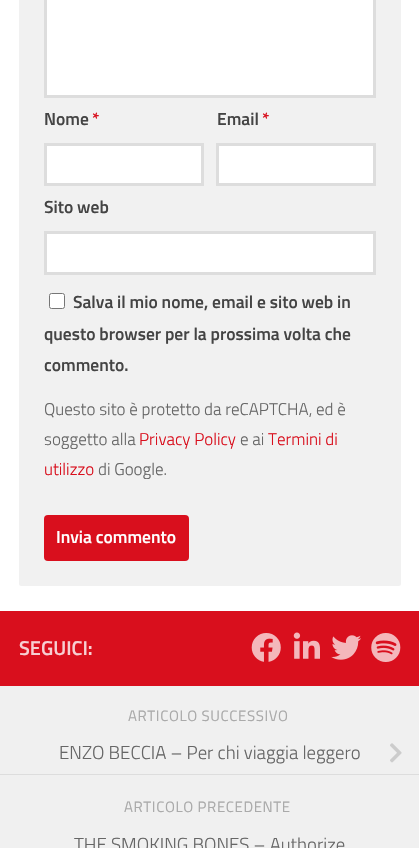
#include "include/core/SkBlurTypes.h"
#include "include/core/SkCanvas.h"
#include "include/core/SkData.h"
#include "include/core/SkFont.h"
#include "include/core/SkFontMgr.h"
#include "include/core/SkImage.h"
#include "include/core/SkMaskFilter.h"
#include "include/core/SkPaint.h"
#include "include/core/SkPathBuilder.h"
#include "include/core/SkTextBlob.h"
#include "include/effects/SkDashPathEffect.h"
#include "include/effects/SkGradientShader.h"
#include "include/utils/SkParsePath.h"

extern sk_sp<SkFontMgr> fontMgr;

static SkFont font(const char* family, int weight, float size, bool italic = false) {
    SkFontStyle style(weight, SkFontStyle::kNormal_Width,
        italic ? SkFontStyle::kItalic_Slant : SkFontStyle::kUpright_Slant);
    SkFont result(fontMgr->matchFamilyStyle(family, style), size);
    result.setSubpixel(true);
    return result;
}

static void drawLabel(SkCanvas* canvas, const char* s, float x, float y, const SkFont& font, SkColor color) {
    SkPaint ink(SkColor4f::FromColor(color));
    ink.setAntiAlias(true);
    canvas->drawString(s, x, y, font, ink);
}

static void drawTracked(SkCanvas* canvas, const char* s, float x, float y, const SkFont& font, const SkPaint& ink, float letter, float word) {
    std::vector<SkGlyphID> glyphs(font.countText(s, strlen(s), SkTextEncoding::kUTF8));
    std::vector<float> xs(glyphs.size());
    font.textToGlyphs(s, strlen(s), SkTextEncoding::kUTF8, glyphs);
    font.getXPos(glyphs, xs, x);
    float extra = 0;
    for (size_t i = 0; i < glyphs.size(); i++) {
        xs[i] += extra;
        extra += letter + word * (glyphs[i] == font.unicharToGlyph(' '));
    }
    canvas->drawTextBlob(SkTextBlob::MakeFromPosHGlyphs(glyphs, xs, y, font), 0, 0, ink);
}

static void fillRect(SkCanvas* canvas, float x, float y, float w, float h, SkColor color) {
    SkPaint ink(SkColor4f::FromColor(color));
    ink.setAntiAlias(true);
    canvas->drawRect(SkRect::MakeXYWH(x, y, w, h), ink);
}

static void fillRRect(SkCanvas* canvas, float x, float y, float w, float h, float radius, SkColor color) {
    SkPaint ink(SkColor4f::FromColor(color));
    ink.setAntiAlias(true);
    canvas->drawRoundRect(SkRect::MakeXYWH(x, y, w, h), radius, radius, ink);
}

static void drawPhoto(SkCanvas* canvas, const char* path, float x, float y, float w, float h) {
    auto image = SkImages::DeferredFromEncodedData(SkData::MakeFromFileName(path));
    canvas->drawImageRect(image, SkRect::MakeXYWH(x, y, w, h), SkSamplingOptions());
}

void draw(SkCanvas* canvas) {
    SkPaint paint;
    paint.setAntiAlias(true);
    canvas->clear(0xFFFFFFFF);
    fillRRect(canvas, 19, -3, 382, 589, 2.5f, 0xFFF1F1F1);
    paint.setColor(0xFFFFFFFF);
    canvas->drawRect(SkRect::MakeXYWH(45.5f, -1.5f, 329, 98), paint);
    paint.setStroke(true);
    paint.setStrokeWidth(3);
    paint.setColor(0xFFDDDDDD);
    canvas->drawRect(SkRect::MakeXYWH(45.5f, -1.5f, 329, 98), paint);
    SkFont font1 = font("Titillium", 600, 17.5f);
    drawLabel(canvas, "Nome", 44, 125, font1, 0xFF444444);
    drawLabel(canvas, "*", 92, 125, font1, 0xFFD90F1D);
    paint.setStroke(false);
    paint.setColor(0xFFFFFFFF);
    canvas->drawRect(SkRect::MakeXYWH(45.5f, 144.5f, 157, 40), paint);
    paint.setStroke(true);
    paint.setColor(0xFFDDDDDD);
    canvas->drawRect(SkRect::MakeXYWH(45.5f, 144.5f, 157, 40), paint);
    drawLabel(canvas, "Email", 217, 125, font1, 0xFF444444);
    drawLabel(canvas, "*", 262, 125, font1, 0xFFD90F1D);
    paint.setStroke(false);
    paint.setColor(0xFFFFFFFF);
    canvas->drawRect(SkRect::MakeXYWH(217.5f, 144.5f, 157, 40), paint);
    paint.setStroke(true);
    paint.setColor(0xFFDDDDDD);
    canvas->drawRect(SkRect::MakeXYWH(217.5f, 144.5f, 157, 40), paint);
    drawLabel(canvas, "Sito web", 44, 213, font1, 0xFF444444);
    paint.setStroke(false);
    paint.setColor(0xFFFFFFFF);
    canvas->drawRect(SkRect::MakeXYWH(45.5f, 232.5f, 329, 41), paint);
    paint.setStroke(true);
    paint.setColor(0xFFDDDDDD);
    canvas->drawRect(SkRect::MakeXYWH(45.5f, 232.5f, 329, 41), paint);
    paint.setStroke(false);
    paint.setColor(0xFFFFFFFF);
    canvas->drawRoundRect(SkRect::MakeXYWH(49.5f, 293.5f, 15, 15), 2, 2, paint);
    paint.setStroke(true);
    paint.setStrokeWidth(1);
    paint.setColor(0xFF767676);
    canvas->drawRoundRect(SkRect::MakeXYWH(49.5f, 293.5f, 15, 15), 2, 2, paint);
    drawLabel(canvas, "Salva il mio nome, email e sito web in", 73, 308, font1, 0xFF444444);
    drawLabel(canvas, "questo browser per la prossima volta che", 44, 340, font1, 0xFF444444);
    drawLabel(canvas, "commento.", 44, 371, font1, 0xFF444444);
    SkFont font2 = font("Titillium", 300, 17);
    drawLabel(canvas, "Questo sito è protetto da reCAPTCHA, ed è", 44, 415, font2, 0xFF666666);
    drawLabel(canvas, "soggetto alla", 44, 445, font2, 0xFF666666);
    drawLabel(canvas, "Privacy Policy", 139, 445, font2, 0xFFD90F1D);
    drawLabel(canvas, "e ai", 240, 445, font2, 0xFF666666);
    drawLabel(canvas, "Termini di", 268, 445, font2, 0xFFD90F1D);
    drawLabel(canvas, "utilizzo", 44, 475, font2, 0xFFD90F1D);
    drawLabel(canvas, "di Google.", 98, 475, font2, 0xFF666666);
    fillRRect(canvas, 44, 515, 145, 46, 4, 0xFFD90F1D);
    drawLabel(canvas, "Invia commento", 56, 543, font1, 0xFFFFFFFF);
    fillRect(canvas, 0, 686, 419, 162, 0xFFF0F0F0);
    fillRect(canvas, 0, 611, 419, 75, 0xFFD90F1D);
    SkFont font3 = font("Titillium", 600, 20);
    drawLabel(canvas, "SEGUICI:", 19, 655, font3, 0xFFF7CFD2);
    drawPhoto(canvas, "assets/img1.png", 251, 633, 30, 29);
    drawPhoto(canvas, "assets/img2.png", 293, 632, 27, 27);
    drawPhoto(canvas, "assets/img3.png", 331, 635, 30, 25);
    drawPhoto(canvas, "assets/img4.png", 371, 633, 30, 29);
    SkFont font4 = font("Titillium", 400, 15);
    paint.setStroke(false);
    paint.setColor(0xFFAAAAAA);
    drawTracked(canvas, "ARTICOLO SUCCESSIVO", 128, 721, font4, paint, 0.6f, 0);
    fillRect(canvas, 0, 774, 419, 1, 0xFFDDDDDD);
    SkFont font5 = font("Titillium", 300, 18.75f);
    drawLabel(canvas, "ENZO BECCIA – Per chi viaggia leggero", 59, 759, font5, 0xFF666666);
    drawPhoto(canvas, "assets/img5.png", 390, 743, 12, 20);
    drawTracked(canvas, "ARTICOLO PRECEDENTE", 124, 812, font4, paint, 0.6f, 0);
    drawLabel(canvas, "THE SMOKING BONES – Authorize", 74, 851, font5, 0xFF666666);
}
